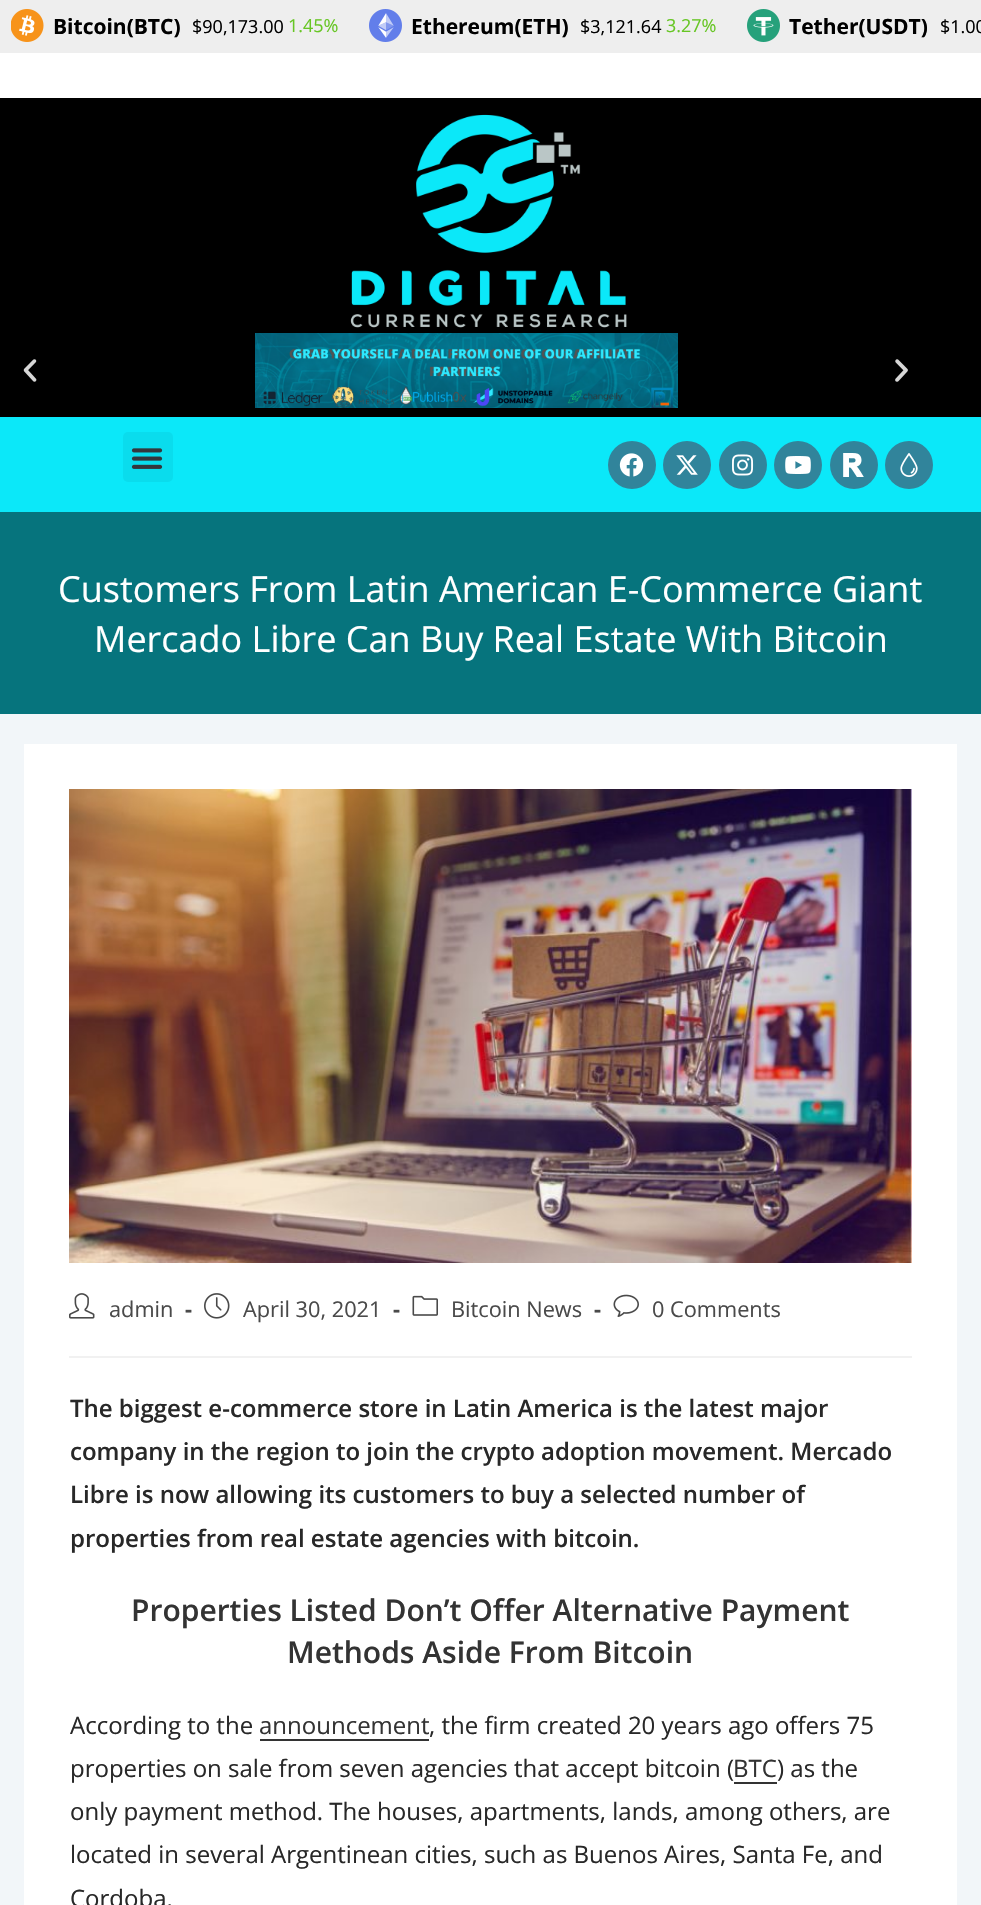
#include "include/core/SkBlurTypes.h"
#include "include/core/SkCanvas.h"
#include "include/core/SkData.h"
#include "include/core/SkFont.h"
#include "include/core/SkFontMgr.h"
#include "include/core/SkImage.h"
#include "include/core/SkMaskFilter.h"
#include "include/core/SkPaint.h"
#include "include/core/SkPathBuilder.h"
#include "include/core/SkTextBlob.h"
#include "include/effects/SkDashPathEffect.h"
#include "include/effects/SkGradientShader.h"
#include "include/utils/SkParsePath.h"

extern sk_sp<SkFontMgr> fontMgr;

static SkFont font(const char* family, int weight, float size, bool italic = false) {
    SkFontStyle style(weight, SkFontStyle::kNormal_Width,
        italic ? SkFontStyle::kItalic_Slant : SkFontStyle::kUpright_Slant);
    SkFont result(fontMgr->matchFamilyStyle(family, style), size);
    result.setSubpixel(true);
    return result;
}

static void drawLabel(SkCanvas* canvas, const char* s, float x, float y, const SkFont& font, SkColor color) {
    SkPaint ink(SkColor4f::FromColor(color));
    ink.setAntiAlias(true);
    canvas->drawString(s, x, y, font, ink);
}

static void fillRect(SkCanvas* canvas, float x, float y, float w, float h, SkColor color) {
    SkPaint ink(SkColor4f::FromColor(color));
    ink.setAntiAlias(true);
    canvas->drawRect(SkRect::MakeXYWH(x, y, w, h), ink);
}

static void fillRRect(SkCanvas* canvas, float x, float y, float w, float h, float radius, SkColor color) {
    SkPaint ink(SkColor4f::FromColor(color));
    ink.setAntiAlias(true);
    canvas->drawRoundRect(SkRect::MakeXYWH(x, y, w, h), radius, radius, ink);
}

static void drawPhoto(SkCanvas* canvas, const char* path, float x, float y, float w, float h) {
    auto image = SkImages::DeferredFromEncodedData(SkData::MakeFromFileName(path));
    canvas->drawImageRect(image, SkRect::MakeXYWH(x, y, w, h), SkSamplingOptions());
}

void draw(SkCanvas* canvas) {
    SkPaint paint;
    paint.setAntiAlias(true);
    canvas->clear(0xFFF2F6F9);
    fillRect(canvas, 0, 0, 981, 53, 0xFFEEEEEE);
    drawPhoto(canvas, "assets/img1.png", 11, 9, 33, 33);
    SkFont font1 = font("Open Sans", 700, 21);
    drawLabel(canvas, "Bitcoin(BTC)", 53, 34, font1, 0xFF000000);
    SkFont font2 = font("Open Sans", 400, 18);
    drawLabel(canvas, "$90,173.00", 192, 33, font2, 0xFF000000);
    drawLabel(canvas, "1.45%", 288, 32, font2, 0xFF67C624);
    drawPhoto(canvas, "assets/img2.png", 369, 9, 33, 33);
    drawLabel(canvas, "Ethereum(ETH)", 411, 34, font1, 0xFF000000);
    drawLabel(canvas, "$3,121.64", 580, 33, font2, 0xFF000000);
    drawLabel(canvas, "3.27%", 666, 32, font2, 0xFF67C624);
    drawPhoto(canvas, "assets/img3.png", 747, 9, 33, 33);
    drawLabel(canvas, "Tether(USDT)", 789, 34, font1, 0xFF000000);
    drawLabel(canvas, "$1.00", 940, 33, font2, 0xFF000000);
    fillRect(canvas, 0, 53, 981, 45, 0xFFFFFFFF);
    fillRect(canvas, 0, 98, 981, 319, 0xFF000000);
    drawPhoto(canvas, "assets/img4.png", 350, 114, 277, 214);
    drawPhoto(canvas, "assets/img5.png", 23, 359, 14, 23);
    drawPhoto(canvas, "assets/img6.png", 255, 333, 423, 75);
    drawPhoto(canvas, "assets/img7.png", 895, 359, 13, 23);
    fillRect(canvas, 0, 417, 981, 95, 0xFF0BE8F9);
    fillRRect(canvas, 123, 432, 50, 50, 5, 0xFF0ADCED);
    drawPhoto(canvas, "assets/img8.png", 131, 448, 32, 21);
    paint.setColor(0xFF31849B);
    canvas->drawCircle(632, 465, 24, paint);
    drawPhoto(canvas, "assets/img9.png", 619, 453, 25, 24);
    canvas->drawCircle(687, 465, 24, paint);
    drawPhoto(canvas, "assets/img10.png", 676, 455, 22, 20);
    canvas->drawCircle(743, 465, 24, paint);
    drawPhoto(canvas, "assets/img11.png", 732, 454, 22, 22);
    canvas->drawCircle(798, 465, 24, paint);
    drawPhoto(canvas, "assets/img12.png", 785, 456, 26, 18);
    canvas->drawCircle(854, 465, 24, paint);
    drawPhoto(canvas, "assets/img13.png", 843, 453, 21, 24);
    canvas->drawCircle(909, 465, 24, paint);
    drawPhoto(canvas, "assets/img14.png", 900, 453, 18, 24);
    fillRect(canvas, 0, 512, 981, 202, 0xFF06747D);
    SkFont font3 = font("Open Sans", 400, 36);
    drawLabel(canvas, "Customers From Latin American E-Commerce Giant", 58, 602, font3, 0xFFFFFFFF);
    drawLabel(canvas, "Mercado Libre Can Buy Real Estate With Bitcoin", 94, 652, font3, 0xFFFFFFFF);
    fillRect(canvas, 24, 744, 933, 1161, 0xFFFFFFFF);
    drawPhoto(canvas, "assets/img15.png", 69, 789, 843, 474);
    fillRect(canvas, 69, 1356, 843, 2, 0xFFF1F1F1);
    drawPhoto(canvas, "assets/img16.png", 69, 1293, 26, 26);
    SkFont font4 = font("Open Sans", 400, 21.75f);
    drawLabel(canvas, "admin", 109, 1317, font4, 0xFF4A4A4A);
    SkFont font5 = font("Open Sans", 700, 21.75f);
    drawLabel(canvas, "-", 185, 1317, font5, 0xFF4A4A4A);
    drawPhoto(canvas, "assets/img17.png", 204, 1293, 26, 26);
    drawLabel(canvas, "April 30, 2021", 243, 1317, font4, 0xFF4A4A4A);
    drawLabel(canvas, "-", 393, 1317, font5, 0xFF4A4A4A);
    drawPhoto(canvas, "assets/img18.png", 412, 1295, 26, 21);
    drawLabel(canvas, "Bitcoin News", 451, 1317, font4, 0xFF4A4A4A);
    drawLabel(canvas, "-", 594, 1317, font5, 0xFF4A4A4A);
    drawPhoto(canvas, "assets/img19.png", 613, 1294, 26, 23);
    drawLabel(canvas, "0 Comments", 652, 1317, font4, 0xFF4A4A4A);
    SkFont font6 = font("Open Sans", 600, 24);
    drawLabel(canvas, "The biggest e-commerce store in Latin America is the latest major", 70, 1417, font6, 0xFF282828);
    drawLabel(canvas, "company in the region to join the crypto adoption movement. Mercado", 70, 1460, font6, 0xFF282828);
    drawLabel(canvas, "Libre is now allowing its customers to buy a selected number of", 70, 1503, font6, 0xFF282828);
    drawLabel(canvas, "properties from real estate agencies with bitcoin.", 70, 1547, font6, 0xFF282828);
    SkFont font7 = font("Open Sans", 600, 30);
    drawLabel(canvas, "Properties Listed Don’t Offer Alternative Payment", 131, 1621, font7, 0xFF333333);
    drawLabel(canvas, "Methods Aside From Bitcoin", 287, 1663, font7, 0xFF333333);
    SkFont font8 = font("Open Sans", 400, 24);
    drawLabel(canvas, "According to the", 70, 1734, font8, 0xFF282828);
    drawLabel(canvas, "announcement", 259, 1734, font8, 0xFF333333);
    fillRect(canvas, 260, 1739, 169, 2, 0xFF333333);
    drawLabel(canvas, ", the firm created 20 years ago offers 75", 429, 1734, font8, 0xFF282828);
    drawLabel(canvas, "properties on sale from seven agencies that accept bitcoin (", 70, 1777, font8, 0xFF282828);
    drawLabel(canvas, "BTC", 733, 1777, font8, 0xFF333333);
    fillRect(canvas, 734, 1782, 43, 2, 0xFF333333);
    drawLabel(canvas, ") as the", 777, 1777, font8, 0xFF282828);
    drawLabel(canvas, "only payment method. The houses, apartments, lands, among others, are", 70, 1820, font8, 0xFF282828);
    drawLabel(canvas, "located in several Argentinean cities, such as Buenos Aires, Santa Fe, and", 70, 1863, font8, 0xFF282828);
    drawLabel(canvas, "Cordoba.", 70, 1907, font8, 0xFF282828);
}
